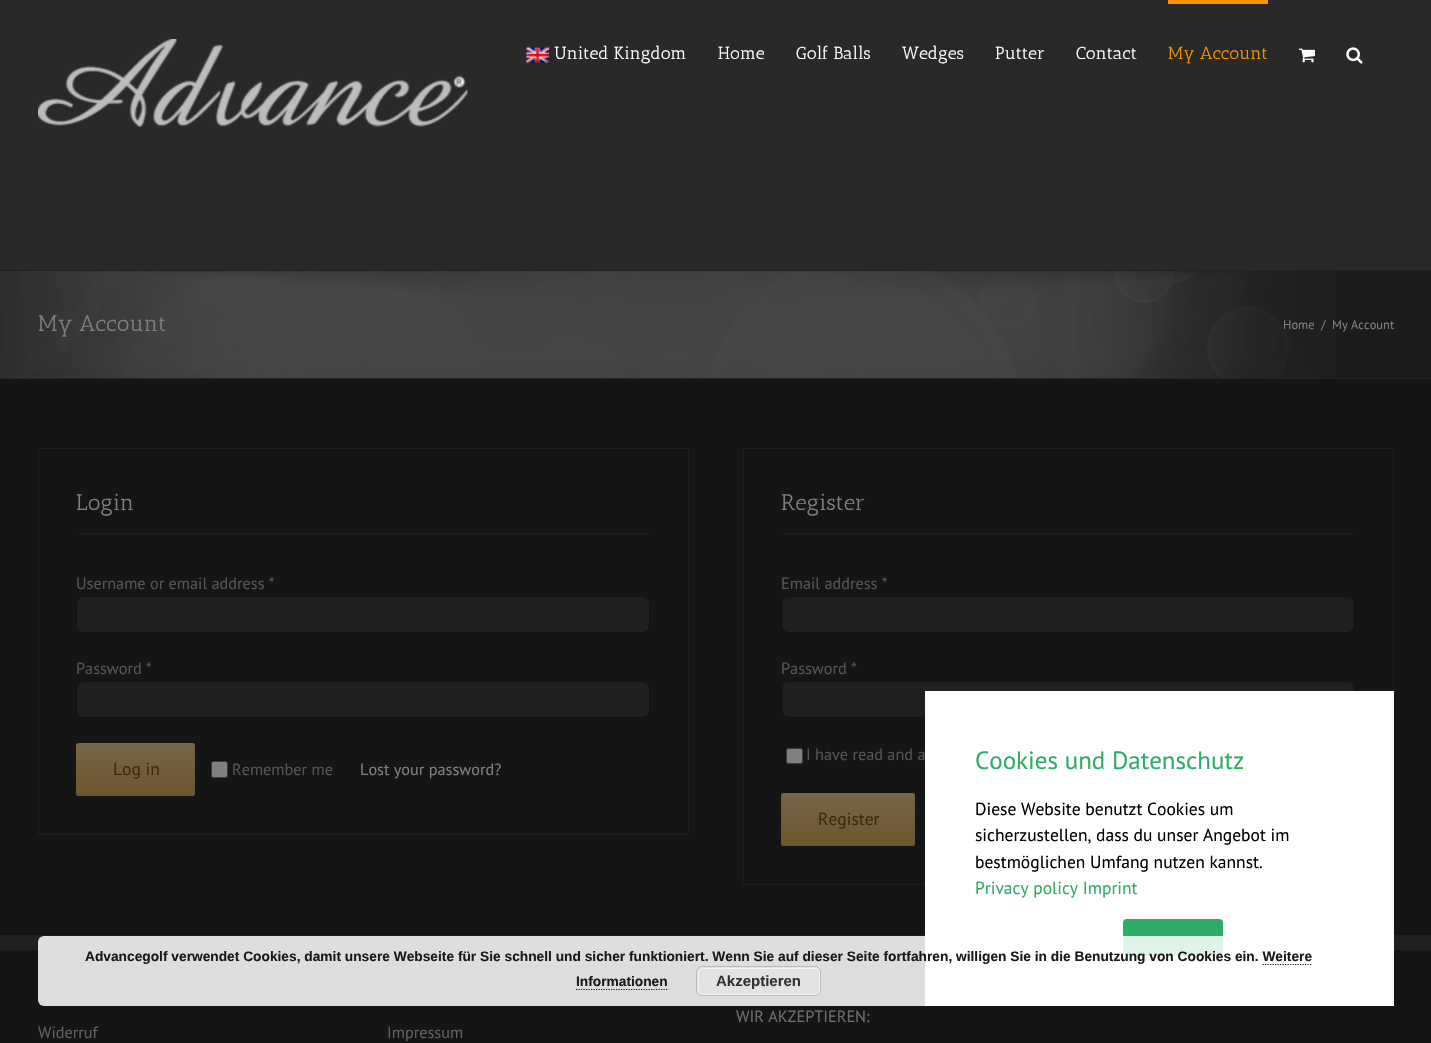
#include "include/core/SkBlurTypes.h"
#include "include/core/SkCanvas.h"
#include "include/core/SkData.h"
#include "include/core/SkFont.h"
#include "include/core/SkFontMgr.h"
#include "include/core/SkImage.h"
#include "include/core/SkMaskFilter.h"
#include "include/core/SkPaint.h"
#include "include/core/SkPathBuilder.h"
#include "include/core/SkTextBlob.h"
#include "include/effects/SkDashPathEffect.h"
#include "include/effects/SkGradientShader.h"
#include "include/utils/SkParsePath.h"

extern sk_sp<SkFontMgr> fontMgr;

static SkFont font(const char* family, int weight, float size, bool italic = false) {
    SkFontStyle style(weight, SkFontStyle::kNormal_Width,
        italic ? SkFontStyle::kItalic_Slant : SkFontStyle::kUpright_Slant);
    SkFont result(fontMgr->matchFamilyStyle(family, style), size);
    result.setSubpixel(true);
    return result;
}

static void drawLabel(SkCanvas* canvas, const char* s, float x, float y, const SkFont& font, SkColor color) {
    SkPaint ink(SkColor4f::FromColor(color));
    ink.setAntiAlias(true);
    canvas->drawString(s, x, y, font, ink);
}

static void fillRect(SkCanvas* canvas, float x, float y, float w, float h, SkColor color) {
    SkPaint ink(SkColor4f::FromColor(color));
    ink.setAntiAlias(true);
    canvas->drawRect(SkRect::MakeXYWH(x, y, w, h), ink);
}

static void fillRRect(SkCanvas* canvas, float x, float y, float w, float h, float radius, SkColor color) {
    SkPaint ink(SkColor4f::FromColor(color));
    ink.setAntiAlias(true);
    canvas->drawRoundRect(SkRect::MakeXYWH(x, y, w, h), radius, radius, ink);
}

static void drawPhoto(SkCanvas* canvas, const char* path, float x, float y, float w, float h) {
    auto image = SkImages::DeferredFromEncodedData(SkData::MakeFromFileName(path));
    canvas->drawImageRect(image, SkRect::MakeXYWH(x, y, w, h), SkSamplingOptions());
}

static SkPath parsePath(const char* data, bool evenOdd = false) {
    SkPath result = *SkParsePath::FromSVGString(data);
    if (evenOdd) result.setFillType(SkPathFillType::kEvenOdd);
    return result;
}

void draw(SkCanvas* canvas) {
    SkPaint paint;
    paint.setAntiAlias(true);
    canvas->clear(0xFF151515);
    fillRect(canvas, 0, 0, 1431, 270, 0xFF29292A);
    drawPhoto(canvas, "assets/img1.png", 38, 39, 430, 88);
    drawPhoto(canvas, "assets/img2.png", 525, 46, 25, 17);
    SkFont font1 = font("Antic Slab", 400, 17.5f);
    drawLabel(canvas, "United Kingdom", 554, 59, font1, 0xFFFFFFFF);
    drawLabel(canvas, "Home", 718, 59, font1, 0xFFFFFFFF);
    drawLabel(canvas, "Golf Balls", 796, 59, font1, 0xFFFFFFFF);
    drawLabel(canvas, "Wedges", 902, 59, font1, 0xFFFFFFFF);
    drawLabel(canvas, "Putter", 995, 59, font1, 0xFFFFFFFF);
    drawLabel(canvas, "Contact", 1076, 59, font1, 0xFFFFFFFF);
    fillRect(canvas, 1168, 0, 100, 4, 0xFFFF9800);
    drawLabel(canvas, "My Account", 1168, 59, font1, 0xFFFF9800);
    drawPhoto(canvas, "assets/img3.png", 1298, 48, 17, 15);
    drawPhoto(canvas, "assets/img4.png", 1346, 47, 17, 17);
    fillRect(canvas, 0, 271, 1431, 107, 0xFF1B1B1B);
    drawPhoto(canvas, "assets/img5.png", 0, 271, 1336, 107);
    fillRect(canvas, 0, 270, 1431, 1, 0xFF232323);
    fillRect(canvas, 0, 378, 1431, 1, 0xFF232323);
    SkFont font2 = font("Antic Slab", 400, 22.5f);
    drawLabel(canvas, "My Account", 38, 331, font2, 0xFF808080);
    SkFont font3 = font("PT Sans", 400, 12.5f);
    drawLabel(canvas, "Home", 1283, 329, font3, 0xFF808080);
    drawLabel(canvas, "/", 1321, 329, font3, 0xFF808080);
    drawLabel(canvas, "My Account", 1332, 329, font3, 0xFF808080);
    paint.setStroke(true);
    paint.setStrokeWidth(1);
    paint.setColor(0xFF1F1F1F);
    canvas->drawRect(SkRect::MakeXYWH(38.5f, 448.5f, 650, 386), paint);
    fillRect(canvas, 76, 533, 574, 1, 0xFF1F1F1F);
    drawLabel(canvas, "Login", 76, 510, font2, 0xFF808080);
    SkFont font4 = font("PT Sans", 400, 16.25f);
    drawLabel(canvas, "Username or email address *", 76, 589, font4, 0xFF555555);
    paint.setStroke(false);
    canvas->drawRoundRect(SkRect::MakeXYWH(76.5f, 596.5f, 573, 36), 7.5f, 7.5f, paint);
    paint.setStroke(true);
    paint.setColor(0xFF111111);
    canvas->drawRoundRect(SkRect::MakeXYWH(76.5f, 596.5f, 573, 36), 7.5f, 7.5f, paint);
    drawLabel(canvas, "Password *", 76, 674, font4, 0xFF555555);
    paint.setStroke(false);
    paint.setColor(0xFF1F1F1F);
    canvas->drawRoundRect(SkRect::MakeXYWH(76.5f, 681.5f, 573, 36), 7.5f, 7.5f, paint);
    paint.setStroke(true);
    paint.setColor(0xFF111111);
    canvas->drawRoundRect(SkRect::MakeXYWH(76.5f, 681.5f, 573, 36), 7.5f, 7.5f, paint);
    paint.setStroke(false);
    {
        const SkColor colors[] = {0xFF6B572D, 0xFF746648};
        const float stops[] = {0, 1};
        const SkPoint ends[] = {{136, 796}, {136, 743}};
        paint.setShader(SkGradientShader::MakeLinear(ends, colors, stops, 2, SkTileMode::kClamp));
        paint.setAlpha(255);
    }
    canvas->drawRoundRect(SkRect::MakeXYWH(76, 743, 119, 53), 2.5f, 2.5f, paint);
    SkFont font5 = font("PT Sans", 400, 17.5f);
    drawLabel(canvas, "Log in", 113, 775, font5, 0xFF3C2B08);
    paint.setShader(nullptr);
    paint.setColor(0xFF808080);
    canvas->drawRoundRect(SkRect::MakeXYWH(211.5f, 761.5f, 16, 16), 2, 2, paint);
    paint.setStroke(true);
    paint.setColor(0xFF3B3B3B);
    canvas->drawRoundRect(SkRect::MakeXYWH(211.5f, 761.5f, 16, 16), 2, 2, paint);
    drawLabel(canvas, "Remember me", 232, 775, font4, 0xFF555555);
    drawLabel(canvas, "Lost your password?", 360, 775, font4, 0xFF808080);
    paint.setColor(0xFF1F1F1F);
    canvas->drawRect(SkRect::MakeXYWH(743.5f, 448.5f, 650, 436), paint);
    fillRect(canvas, 781, 533, 574, 1, 0xFF1F1F1F);
    drawLabel(canvas, "Register", 781, 510, font2, 0xFF808080);
    drawLabel(canvas, "Email address *", 781, 589, font4, 0xFF555555);
    paint.setStroke(false);
    canvas->drawRoundRect(SkRect::MakeXYWH(781.5f, 596.5f, 573, 36), 7.5f, 7.5f, paint);
    paint.setStroke(true);
    paint.setColor(0xFF111111);
    canvas->drawRoundRect(SkRect::MakeXYWH(781.5f, 596.5f, 573, 36), 7.5f, 7.5f, paint);
    drawLabel(canvas, "Password *", 781, 674, font4, 0xFF555555);
    paint.setStroke(false);
    paint.setColor(0xFF1F1F1F);
    canvas->drawRoundRect(SkRect::MakeXYWH(781.5f, 681.5f, 573, 36), 7.5f, 7.5f, paint);
    paint.setStroke(true);
    paint.setColor(0xFF111111);
    canvas->drawRoundRect(SkRect::MakeXYWH(781.5f, 681.5f, 573, 36), 7.5f, 7.5f, paint);
    paint.setStroke(false);
    paint.setColor(0xFF808080);
    canvas->drawRoundRect(SkRect::MakeXYWH(786.5f, 748.5f, 16, 15), 2, 2, paint);
    paint.setStroke(true);
    paint.setColor(0xFF3B3B3B);
    canvas->drawRoundRect(SkRect::MakeXYWH(786.5f, 748.5f, 16, 15), 2, 2, paint);
    drawLabel(canvas, "I have read and a", 806, 760, font4, 0xFF555555);
    paint.setStroke(false);
    {
        const SkColor colors[] = {0xFF6B572D, 0xFF746648};
        const float stops[] = {0, 1};
        const SkPoint ends[] = {{848, 846}, {848, 793}};
        paint.setShader(SkGradientShader::MakeLinear(ends, colors, stops, 2, SkTileMode::kClamp));
        paint.setAlpha(255);
    }
    canvas->drawRoundRect(SkRect::MakeXYWH(781, 793, 134, 53), 2.5f, 2.5f, paint);
    drawLabel(canvas, "Register", 818, 825, font5, 0xFF3C2B08);
    fillRect(canvas, 0, 935, 1431, 15, 0xFF202020);
    drawLabel(canvas, "WIR AKZEPTIEREN:", 736, 1022, font4, 0xFF6F6F6F);
    drawLabel(canvas, "Widerruf", 38, 1038, font4, 0xFF606060);
    drawLabel(canvas, "Impressum", 387, 1038, font4, 0xFF606060);
    fillRect(canvas, 925, 691, 469, 315, 0xFFFFFFFF);
    SkFont font6 = font("PT Sans", 400, 25);
    drawLabel(canvas, "Cookies und Datenschutz", 975, 769, font6, 0xFF2FAC66);
    drawLabel(canvas, "Diese Website benutzt Cookies um", 975, 815, font5, 0xFF000000);
    drawLabel(canvas, "sicherzustellen, dass du unser Angebot im", 975, 841, font5, 0xFF000000);
    drawLabel(canvas, "bestmöglichen Umfang nutzen kannst.", 975, 868, font5, 0xFF000000);
    drawLabel(canvas, "Privacy policy Imprint", 975, 894, font5, 0xFF2FAC66);
    fillRRect(canvas, 1123, 919, 100, 37, 4, 0xFF2FAC66);
    fillRRect(canvas, 38, 936, 1322, 70, 6, 0xD9FFFFFF);
    SkFont font7 = font("Liberation Sans", 700, 13.75f);
    drawLabel(canvas, "Advancegolf verwendet Cookies, damit unsere Webseite für Sie schnell und sicher funktioniert. Wenn Sie auf dieser Seite fortfahren, willigen Sie in die Benutzung von Cookies ein. Weitere", 85, 961, font7, 0xFF191919);
    drawLabel(canvas, "Informationen", 576, 986, font7, 0xFF191919);
    paint.setStroke(true);
    paint.setStrokeWidth(1.2f);
    paint.setShader(nullptr);
    paint.setColor(0xFF191919);
    paint.setPathEffect(SkDashPathEffect::Make({{1.25f, 1.25f}}, 0));
    canvas->drawPath(parsePath("M1262.5 964.5H1312.5"), paint);
    paint.setPathEffect(nullptr);
    paint.setPathEffect(SkDashPathEffect::Make({{1.25f, 1.25f}}, 0));
    canvas->drawPath(parsePath("M576 989.5H667.5"), paint);
    paint.setPathEffect(nullptr);
    fillRRect(canvas, 696, 966, 125, 30, 6, 0xFFE3E3E3);
    paint.setStrokeWidth(1);
    paint.setColor(0xFFF6F6F6);
    canvas->drawRoundRect(SkRect::MakeXYWH(698.5f, 968.5f, 121, 26), 4.5f, 4.5f, paint);
    paint.setColor(0xFFBBBBBB);
    canvas->drawRoundRect(SkRect::MakeXYWH(696.5f, 966.5f, 124, 29), 5.5f, 5.5f, paint);
    SkFont font8 = font("Liberation Sans", 700, 15);
    drawLabel(canvas, "Akzeptieren", 716, 986, font8, 0xFF333333);
}
